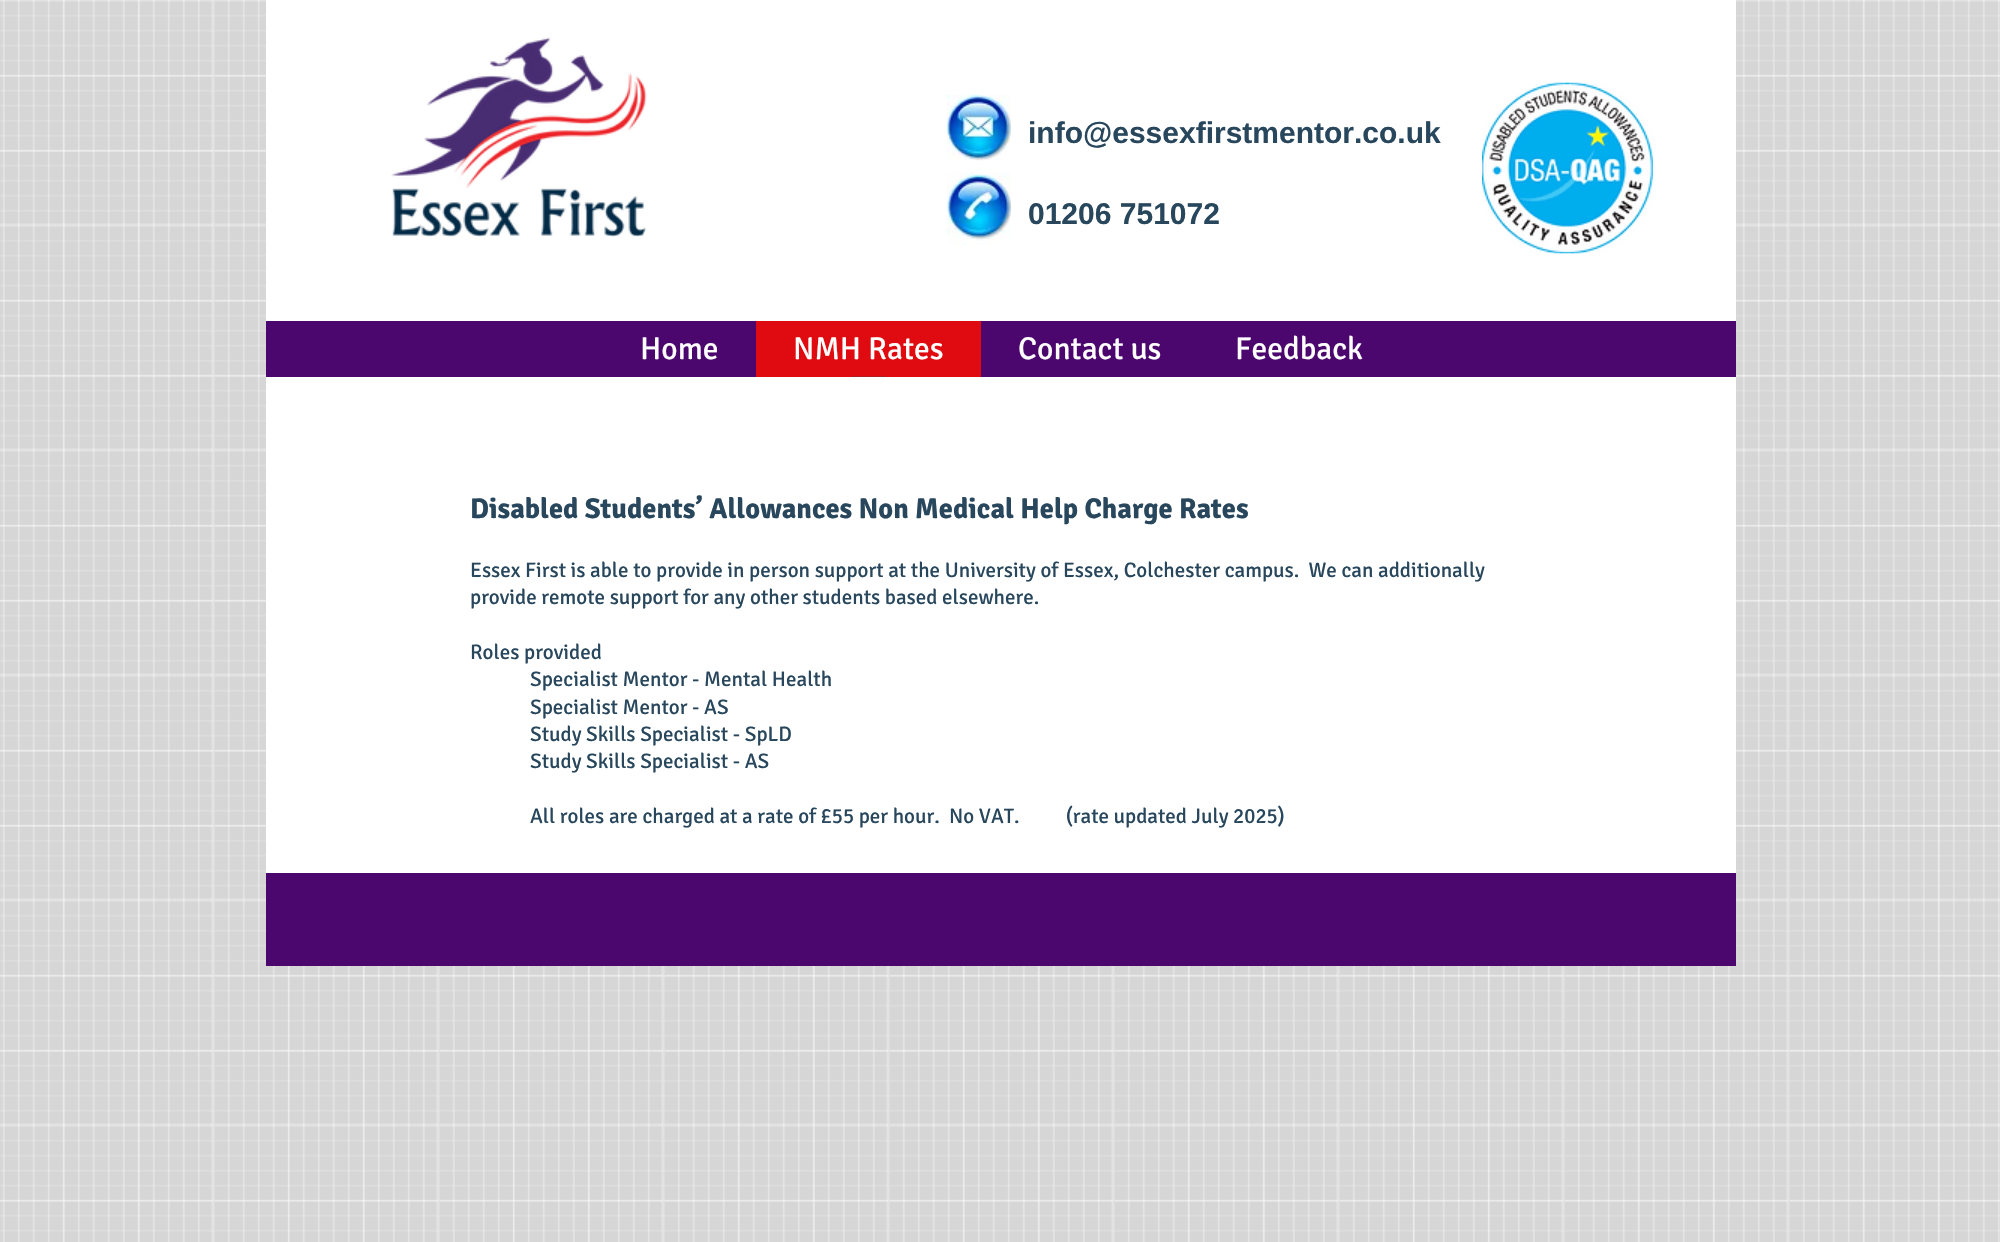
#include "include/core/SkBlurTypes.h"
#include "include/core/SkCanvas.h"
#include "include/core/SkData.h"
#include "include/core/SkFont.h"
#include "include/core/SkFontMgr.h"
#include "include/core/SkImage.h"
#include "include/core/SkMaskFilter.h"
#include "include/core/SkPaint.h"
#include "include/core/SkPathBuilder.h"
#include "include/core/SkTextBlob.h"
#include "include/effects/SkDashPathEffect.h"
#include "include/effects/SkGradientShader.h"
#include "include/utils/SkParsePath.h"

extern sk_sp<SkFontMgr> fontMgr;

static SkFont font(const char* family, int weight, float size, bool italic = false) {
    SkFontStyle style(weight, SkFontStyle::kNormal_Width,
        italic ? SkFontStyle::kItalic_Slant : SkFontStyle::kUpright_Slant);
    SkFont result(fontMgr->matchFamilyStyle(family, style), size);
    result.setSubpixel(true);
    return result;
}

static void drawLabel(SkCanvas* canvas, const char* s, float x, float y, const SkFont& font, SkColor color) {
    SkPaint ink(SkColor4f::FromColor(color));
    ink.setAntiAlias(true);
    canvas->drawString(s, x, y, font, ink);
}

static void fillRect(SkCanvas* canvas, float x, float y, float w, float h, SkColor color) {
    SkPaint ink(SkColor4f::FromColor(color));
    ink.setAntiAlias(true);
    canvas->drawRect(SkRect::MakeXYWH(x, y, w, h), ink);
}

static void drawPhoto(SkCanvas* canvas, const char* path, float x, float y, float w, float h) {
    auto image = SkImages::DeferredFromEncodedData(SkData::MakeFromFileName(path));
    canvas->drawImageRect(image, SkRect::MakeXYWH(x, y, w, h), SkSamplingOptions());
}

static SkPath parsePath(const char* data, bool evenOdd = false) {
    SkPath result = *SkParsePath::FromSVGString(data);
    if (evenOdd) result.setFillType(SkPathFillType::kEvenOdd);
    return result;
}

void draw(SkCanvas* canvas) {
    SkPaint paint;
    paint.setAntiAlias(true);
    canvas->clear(0xFFD6D6D6);
    drawPhoto(canvas, "assets/img1.png", 0, 0, 2000, 1242);
    fillRect(canvas, 266, 0, 1470, 321, 0xFFFFFFFF);
    drawPhoto(canvas, "assets/img2.png", 391, 37, 256, 200);
    drawPhoto(canvas, "assets/img3.png", 946, 94, 65, 67);
    SkFont font1 = font("Liberation Sans", 700, 30);
    drawLabel(canvas, "info@essexfirstmentor.co.uk", 1028, 143, font1, 0xFF28475D);
    drawLabel(canvas, "01206 751072", 1028, 224, font1, 0xFF28475D);
    drawPhoto(canvas, "assets/img4.png", 1482, 82, 171, 172);
    drawPhoto(canvas, "assets/img5.png", 946, 172, 65, 73);
    fillRect(canvas, 266, 321, 1470, 56, 0xFF4B076E);
    SkFont font2 = font("Signika", 400, 31.5f);
    drawLabel(canvas, "Home", 640, 359, font2, 0xFFFFFFFF);
    fillRect(canvas, 756, 321, 225, 56, 0xFFE00B11);
    drawLabel(canvas, "NMH Rates", 793, 359, font2, 0xFFFFFFFF);
    paint.setColor(0xFF28475D);
    canvas->drawPath(parsePath("M852 376.5H885L868.5 393Z"), paint);
    paint.setColor(0xFFE00B11);
    canvas->drawPath(parsePath("M853.5 376.5H883.5L868.5 391.5Z"), paint);
    drawLabel(canvas, "Contact us", 1018, 359, font2, 0xFFFFFFFF);
    drawLabel(canvas, "Feedback", 1235, 359, font2, 0xFFFFFFFF);
    fillRect(canvas, 266, 377, 1470, 496, 0xFFFFFFFF);
    SkFont font3 = font("Signika", 700, 28.5f);
    drawLabel(canvas, "Disabled Students’ Allowances Non Medical Help Charge Rates", 470, 518, font3, 0xFF28475D);
    SkFont font4 = font("Signika", 400, 21);
    drawLabel(canvas, "Essex First is able to provide in person support at the University of Essex, Colchester campus.  We can additionally", 470, 577, font4, 0xFF28475D);
    drawLabel(canvas, "provide remote support for any other students based elsewhere.", 470, 604, font4, 0xFF28475D);
    drawLabel(canvas, "Roles provided", 470, 659, font4, 0xFF28475D);
    drawLabel(canvas, "Specialist Mentor - Mental Health", 530, 686, font4, 0xFF28475D);
    drawLabel(canvas, "Specialist Mentor - AS", 530, 714, font4, 0xFF28475D);
    drawLabel(canvas, "Study Skills Specialist - SpLD", 530, 741, font4, 0xFF28475D);
    drawLabel(canvas, "Study Skills Specialist - AS", 530, 768, font4, 0xFF28475D);
    drawLabel(canvas, "All roles are charged at a rate of £55 per hour.  No VAT.          (rate updated July 2025)", 530, 823, font4, 0xFF28475D);
    fillRect(canvas, 266, 873, 1470, 93, 0xFF4B076E);
}
